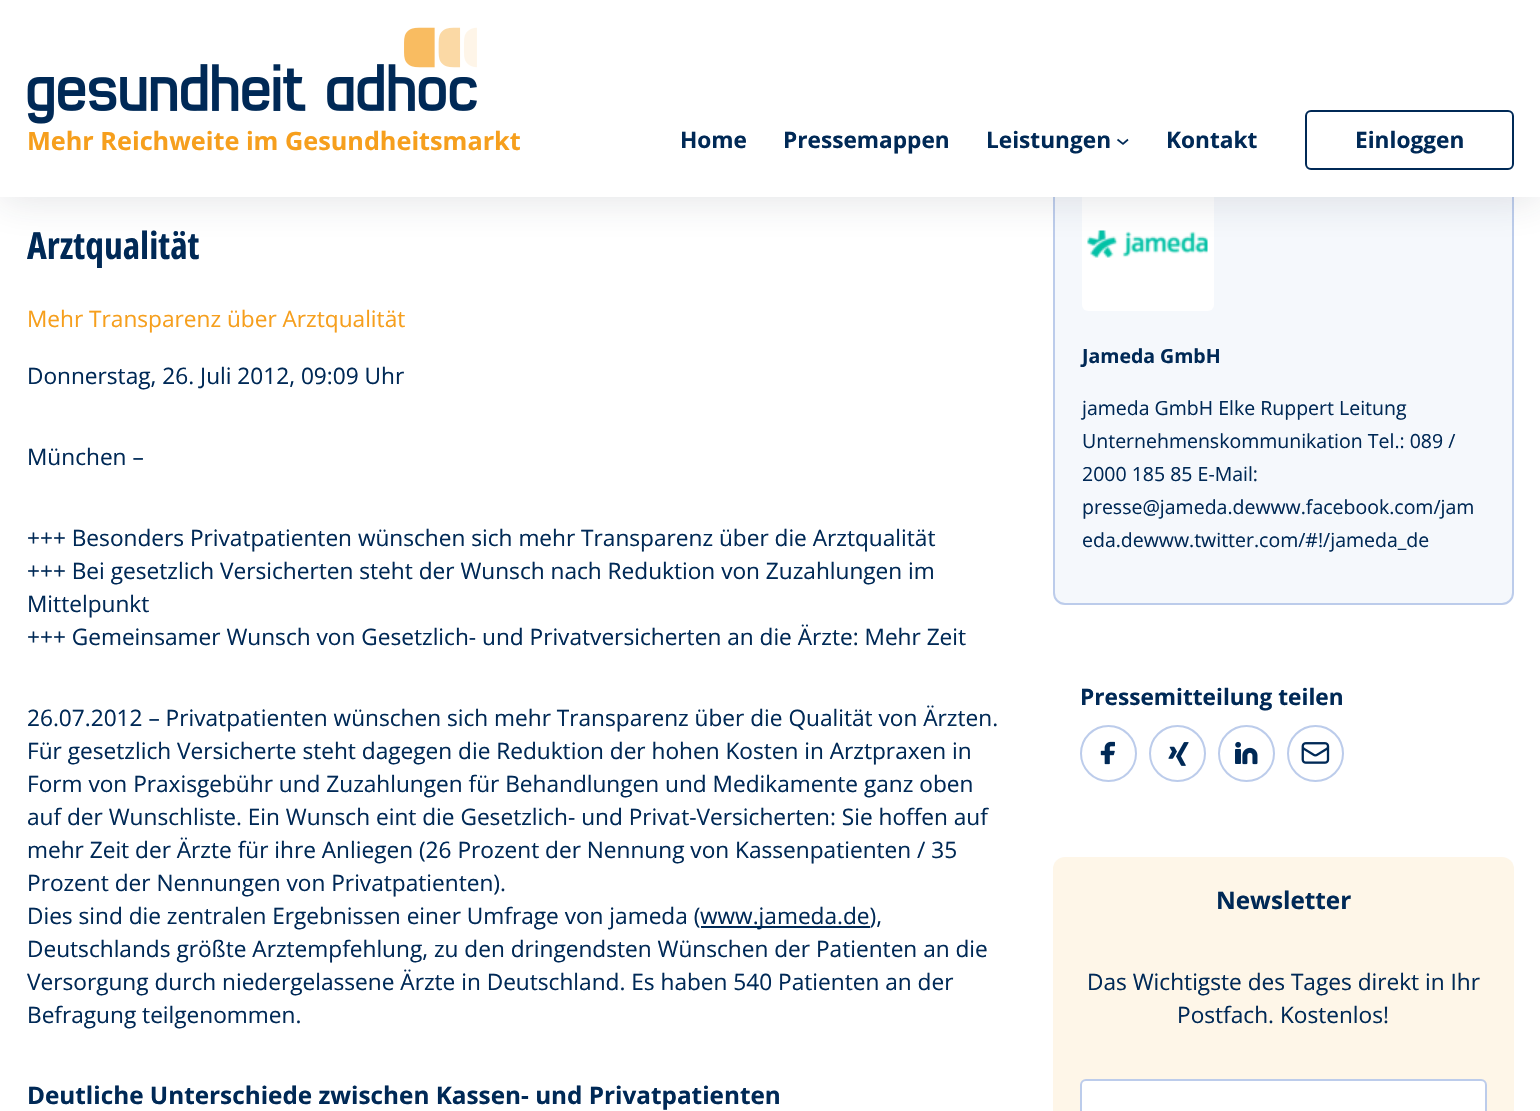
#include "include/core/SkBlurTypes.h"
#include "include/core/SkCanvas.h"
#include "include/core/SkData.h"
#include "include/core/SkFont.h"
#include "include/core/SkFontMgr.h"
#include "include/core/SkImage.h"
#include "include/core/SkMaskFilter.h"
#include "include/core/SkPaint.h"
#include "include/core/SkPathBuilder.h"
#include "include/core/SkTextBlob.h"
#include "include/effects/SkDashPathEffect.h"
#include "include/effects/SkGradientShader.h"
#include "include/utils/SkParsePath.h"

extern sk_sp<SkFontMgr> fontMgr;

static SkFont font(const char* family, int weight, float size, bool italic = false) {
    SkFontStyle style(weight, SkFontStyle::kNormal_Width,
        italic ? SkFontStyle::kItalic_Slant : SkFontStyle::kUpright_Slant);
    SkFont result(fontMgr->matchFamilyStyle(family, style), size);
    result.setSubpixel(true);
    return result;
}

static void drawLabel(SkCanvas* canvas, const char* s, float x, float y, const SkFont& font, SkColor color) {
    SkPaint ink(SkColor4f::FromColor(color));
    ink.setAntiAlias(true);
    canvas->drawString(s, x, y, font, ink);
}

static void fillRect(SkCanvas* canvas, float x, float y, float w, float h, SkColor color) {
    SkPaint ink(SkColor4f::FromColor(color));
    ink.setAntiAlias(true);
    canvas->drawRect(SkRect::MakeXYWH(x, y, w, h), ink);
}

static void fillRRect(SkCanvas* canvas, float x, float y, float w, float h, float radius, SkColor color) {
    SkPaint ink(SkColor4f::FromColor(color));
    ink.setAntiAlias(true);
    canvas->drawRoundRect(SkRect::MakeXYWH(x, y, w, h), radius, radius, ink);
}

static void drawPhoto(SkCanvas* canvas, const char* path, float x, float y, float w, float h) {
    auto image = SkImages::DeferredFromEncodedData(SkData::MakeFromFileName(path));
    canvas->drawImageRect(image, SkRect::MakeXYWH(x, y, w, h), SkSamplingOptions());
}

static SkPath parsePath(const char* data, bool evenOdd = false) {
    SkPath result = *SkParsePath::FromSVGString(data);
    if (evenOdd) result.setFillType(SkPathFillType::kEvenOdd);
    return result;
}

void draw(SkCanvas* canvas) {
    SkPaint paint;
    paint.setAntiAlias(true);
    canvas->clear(0xFFFFFFFF);
    paint.setColor(0xFFF5F8FC);
    canvas->drawRoundRect(SkRect::MakeXYWH(1054, 151, 459, 453), 11, 11, paint);
    paint.setStroke(true);
    paint.setStrokeWidth(2);
    paint.setColor(0xFFBCCCEB);
    canvas->drawRoundRect(SkRect::MakeXYWH(1054, 151, 459, 453), 11, 11, paint);
    fillRRect(canvas, 1082, 179, 132, 132, 6, 0xFFFFFFFF);
    drawPhoto(canvas, "assets/img2.png", 1087, 230, 121, 28);
    paint.setStroke(false);
    paint.setColor(0x2129323C);
    paint.setMaskFilter(SkMaskFilter::MakeBlur(kNormal_SkBlurStyle, 19.5f));
    canvas->drawRect(SkRect::MakeXYWH(0, 3, 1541, 197), paint);
    paint.setMaskFilter(nullptr);
    fillRect(canvas, 0, 0, 1540, 197, 0xFFFFFFFF);
    drawPhoto(canvas, "assets/img1.png", 27, 27, 450, 97);
    SkFont font1 = font("Open Sans", 700, 25.25f);
    drawLabel(canvas, "Mehr Reichweite im Gesundheitsmarkt", 27, 150, font1, 0xFFF69F1D);
    SkFont font2 = font("Open Sans", 700, 22.65f);
    drawLabel(canvas, "Home", 680, 148, font2, 0xFF002956);
    drawLabel(canvas, "Pressemappen", 783, 148, font2, 0xFF002956);
    drawLabel(canvas, "Leistungen", 986, 148, font2, 0xFF002956);
    paint.setStroke(true);
    paint.setStrokeWidth(1.7f);
    paint.setColor(0xFF002956);
    canvas->drawPath(parsePath("M1117.5 139.5L1123 144L1128 139.5"), paint);
    drawLabel(canvas, "Kontakt", 1166, 148, font2, 0xFF002956);
    paint.setStrokeWidth(2);
    canvas->drawRoundRect(SkRect::MakeXYWH(1306, 111, 207, 58), 5, 5, paint);
    drawLabel(canvas, "Einloggen", 1355, 148, font2, 0xFF002956);
    SkFont font3 = font("Open Sans Condensed", 700, 37.5f);
    drawLabel(canvas, "Arztqualität", 27, 259, font3, 0xFF002956);
    SkFont font4 = font("Open Sans", 400, 22.65f);
    drawLabel(canvas, "Mehr Transparenz über Arztqualität", 27, 327, font4, 0xFFF69F1D);
    drawLabel(canvas, "Donnerstag, 26. Juli 2012, 09:09 Uhr", 27, 384, font4, 0xFF002956);
    drawLabel(canvas, "München –", 27, 465, font4, 0xFF002956);
    drawLabel(canvas, "+++ Besonders Privatpatienten wünschen sich mehr Transparenz über die Arztqualität", 27, 546, font4, 0xFF002956);
    drawLabel(canvas, "+++ Bei gesetzlich Versicherten steht der Wunsch nach Reduktion von Zuzahlungen im", 27, 579, font4, 0xFF002956);
    drawLabel(canvas, "Mittelpunkt", 27, 612, font4, 0xFF002956);
    drawLabel(canvas, "+++ Gemeinsamer Wunsch von Gesetzlich- und Privatversicherten an die Ärzte: Mehr Zeit", 27, 645, font4, 0xFF002956);
    drawLabel(canvas, "26.07.2012 – Privatpatienten wünschen sich mehr Transparenz über die Qualität von Ärzten.", 27, 726, font4, 0xFF002956);
    drawLabel(canvas, "Für gesetzlich Versicherte steht dagegen die Reduktion der hohen Kosten in Arztpraxen in", 27, 759, font4, 0xFF002956);
    drawLabel(canvas, "Form von Praxisgebühr und Zuzahlungen für Behandlungen und Medikamente ganz oben", 27, 792, font4, 0xFF002956);
    drawLabel(canvas, "auf der Wunschliste. Ein Wunsch eint die Gesetzlich- und Privat-Versicherten: Sie hoffen auf", 27, 825, font4, 0xFF002956);
    drawLabel(canvas, "mehr Zeit der Ärzte für ihre Anliegen (26 Prozent der Nennung von Kassenpatienten / 35", 27, 858, font4, 0xFF002956);
    drawLabel(canvas, "Prozent der Nennungen von Privatpatienten).", 27, 891, font4, 0xFF002956);
    drawLabel(canvas, "Dies sind die zentralen Ergebnissen einer Umfrage von jameda (", 27, 924, font4, 0xFF002956);
    fillRect(canvas, 701, 926, 169, 2, 0xFF002956);
    drawLabel(canvas, "www.jameda.de),", 700, 924, font4, 0xFF002956);
    drawLabel(canvas, "Deutschlands größte Arztempfehlung, zu den dringendsten Wünschen der Patienten an die", 27, 957, font4, 0xFF002956);
    drawLabel(canvas, "Versorgung durch niedergelassene Ärzte in Deutschland. Es haben 540 Patienten an der", 27, 990, font4, 0xFF002956);
    drawLabel(canvas, "Befragung teilgenommen.", 27, 1023, font4, 0xFF002956);
    SkFont font5 = font("Open Sans", 700, 24.3f);
    drawLabel(canvas, "Deutliche Unterschiede zwischen Kassen- und Privatpatienten", 27, 1104, font5, 0xFF002956);
    SkFont font6 = font("Open Sans", 700, 19.5f);
    drawLabel(canvas, "Jameda GmbH", 1082, 363, font6, 0xFF002956);
    SkFont font7 = font("Open Sans", 400, 19.5f);
    drawLabel(canvas, "jameda GmbH Elke Ruppert Leitung", 1082, 415, font7, 0xFF002956);
    drawLabel(canvas, "Unternehmenskommunikation Tel.: 089 /", 1082, 448, font7, 0xFF002956);
    drawLabel(canvas, "2000 185 85 E-Mail:", 1082, 481, font7, 0xFF002956);
    drawLabel(canvas, "presse@jameda.dewww.facebook.com/jam", 1082, 514, font7, 0xFF002956);
    drawLabel(canvas, "eda.dewww.twitter.com/#!/jameda_de", 1082, 547, font7, 0xFF002956);
    drawLabel(canvas, "Pressemitteilung teilen", 1080, 705, font2, 0xFF002956);
    paint.setColor(0xFFBCCCEB);
    canvas->drawCircle(1108.5f, 753.5f, 27.5f, paint);
    drawPhoto(canvas, "assets/img3.png", 1100, 741, 15, 24);
    canvas->drawCircle(1177.5f, 753.5f, 27.5f, paint);
    drawPhoto(canvas, "assets/img4.png", 1168, 742, 21, 24);
    canvas->drawCircle(1246.5f, 753.5f, 27.5f, paint);
    drawPhoto(canvas, "assets/img5.png", 1235, 741, 23, 24);
    canvas->drawCircle(1315.5f, 753.5f, 27.5f, paint);
    drawPhoto(canvas, "assets/img6.png", 1301, 742, 29, 22);
    fillRRect(canvas, 1053, 857, 461, 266, 12, 0xFFFEF6E8);
    drawLabel(canvas, "Newsletter", 1216, 909, font5, 0xFF002956);
    drawLabel(canvas, "Das Wichtigste des Tages direkt in Ihr", 1087, 990, font4, 0xFF002956);
    drawLabel(canvas, "Postfach. Kostenlos!", 1177, 1023, font4, 0xFF002956);
    paint.setStroke(false);
    paint.setColor(0xFFFFFFFF);
    canvas->drawRoundRect(SkRect::MakeXYWH(1081, 1080, 405, 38), 5, 5, paint);
    paint.setStroke(true);
    paint.setColor(0xFFBCCCEB);
    canvas->drawRoundRect(SkRect::MakeXYWH(1081, 1080, 405, 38), 5, 5, paint);
}
